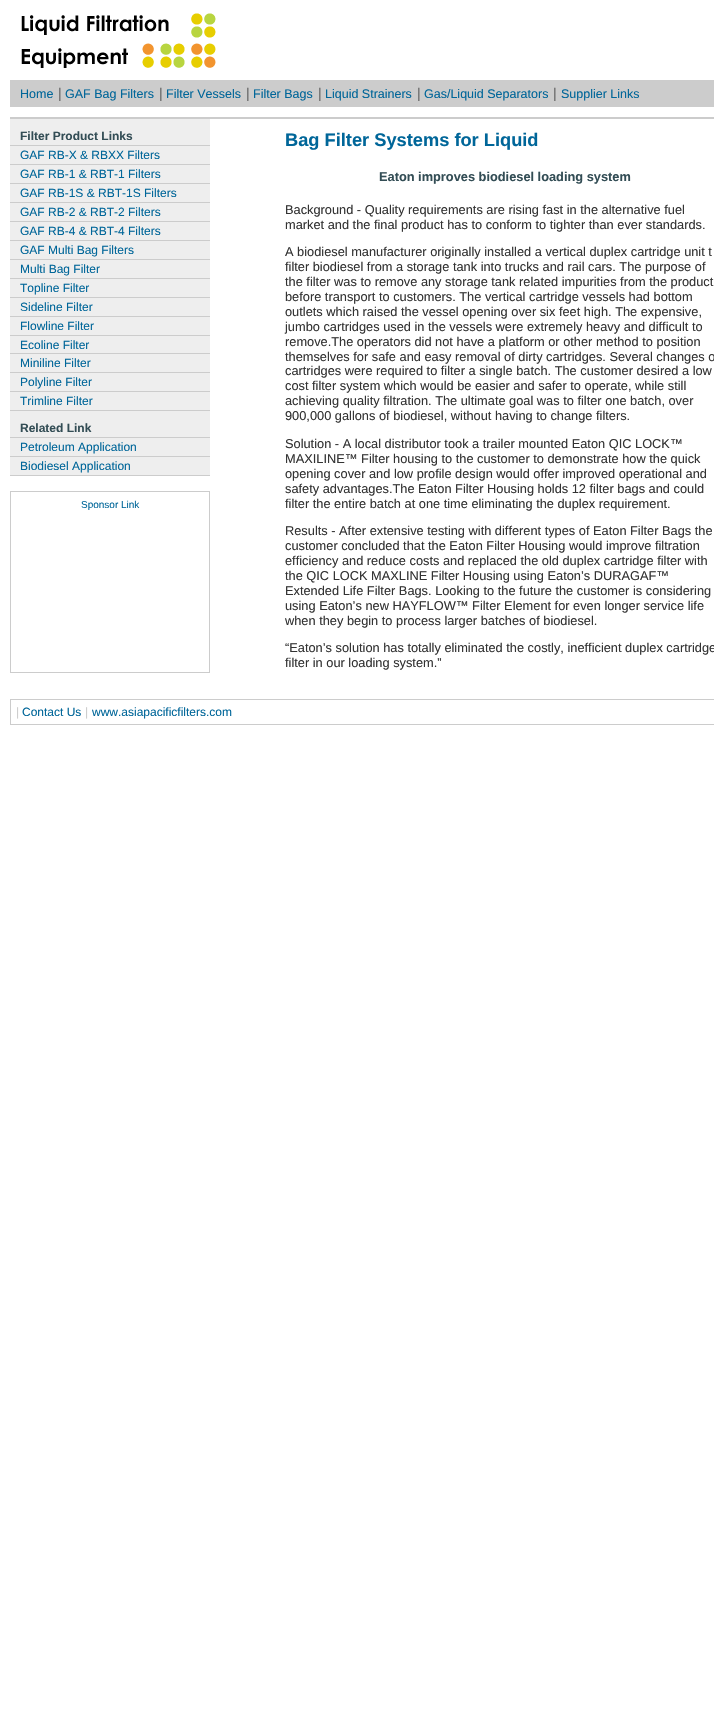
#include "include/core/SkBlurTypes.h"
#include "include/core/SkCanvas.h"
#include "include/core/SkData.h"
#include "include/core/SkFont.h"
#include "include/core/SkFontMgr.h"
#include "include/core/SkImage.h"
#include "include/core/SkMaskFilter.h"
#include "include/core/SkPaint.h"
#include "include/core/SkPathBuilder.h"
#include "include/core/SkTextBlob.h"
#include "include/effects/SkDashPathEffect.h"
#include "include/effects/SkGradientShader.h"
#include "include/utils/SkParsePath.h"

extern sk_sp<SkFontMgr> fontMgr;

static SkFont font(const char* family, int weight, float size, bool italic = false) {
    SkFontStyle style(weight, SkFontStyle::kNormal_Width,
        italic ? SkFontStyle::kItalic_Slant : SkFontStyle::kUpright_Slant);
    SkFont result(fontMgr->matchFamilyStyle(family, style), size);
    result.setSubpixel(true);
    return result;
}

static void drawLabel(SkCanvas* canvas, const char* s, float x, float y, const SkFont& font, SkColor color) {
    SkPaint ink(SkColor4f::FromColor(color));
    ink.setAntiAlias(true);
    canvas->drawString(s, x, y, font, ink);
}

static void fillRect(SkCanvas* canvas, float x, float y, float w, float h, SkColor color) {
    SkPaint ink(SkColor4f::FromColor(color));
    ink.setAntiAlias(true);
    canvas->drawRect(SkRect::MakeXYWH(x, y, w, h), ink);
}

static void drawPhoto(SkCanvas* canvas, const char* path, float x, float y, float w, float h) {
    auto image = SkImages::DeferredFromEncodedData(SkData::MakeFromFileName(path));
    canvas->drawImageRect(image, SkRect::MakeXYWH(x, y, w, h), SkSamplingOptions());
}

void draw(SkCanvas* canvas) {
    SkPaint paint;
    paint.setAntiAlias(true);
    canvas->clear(0xFFFFFFFF);
    fillRect(canvas, 10, 117, 704, 2, 0xFFCCCCCC);
    drawPhoto(canvas, "assets/img1.png", 21, 13, 195, 55);
    fillRect(canvas, 10, 80, 704, 27, 0xFFCCCCCC);
    SkFont font1 = font("Liberation Sans", 400, 12.5f);
    drawLabel(canvas, "Home", 20, 98, font1, 0xFF006699);
    SkFont font2 = font("Liberation Sans", 400, 14);
    drawLabel(canvas, "|", 58, 98, font2, 0xFF666666);
    drawLabel(canvas, "GAF Bag Filters", 65, 98, font1, 0xFF006699);
    drawLabel(canvas, "|", 159, 98, font2, 0xFF666666);
    drawLabel(canvas, "Filter Vessels", 166, 98, font1, 0xFF006699);
    drawLabel(canvas, "|", 246, 98, font2, 0xFF666666);
    drawLabel(canvas, "Filter Bags", 253, 98, font1, 0xFF006699);
    drawLabel(canvas, "|", 318, 98, font2, 0xFF666666);
    drawLabel(canvas, "Liquid Strainers", 325, 98, font1, 0xFF006699);
    drawLabel(canvas, "|", 417, 98, font2, 0xFF666666);
    drawLabel(canvas, "Gas/Liquid Separators", 424, 98, font1, 0xFF006699);
    drawLabel(canvas, "|", 553, 98, font2, 0xFF666666);
    drawLabel(canvas, "Supplier Links", 561, 98, font1, 0xFF006699);
    fillRect(canvas, 10, 119, 200, 291, 0xFFEEEEEE);
    fillRect(canvas, 10, 410, 200, 1, 0xFFCCCCCC);
    SkFont font3 = font("Liberation Sans", 700, 12);
    drawLabel(canvas, "Filter Product Links", 20, 140, font3, 0xFF334D55);
    fillRect(canvas, 10, 145, 200, 1, 0xFFCCCCCC);
    SkFont font4 = font("Liberation Sans", 400, 12);
    drawLabel(canvas, "GAF RB-X & RBXX Filters", 20, 159, font4, 0xFF006699);
    fillRect(canvas, 10, 164, 200, 1, 0xFFCCCCCC);
    drawLabel(canvas, "GAF RB-1 & RBT-1 Filters", 20, 178, font4, 0xFF006699);
    fillRect(canvas, 10, 183, 200, 1, 0xFFCCCCCC);
    drawLabel(canvas, "GAF RB-1S & RBT-1S Filters", 20, 197, font4, 0xFF006699);
    fillRect(canvas, 10, 202, 200, 1, 0xFFCCCCCC);
    drawLabel(canvas, "GAF RB-2 & RBT-2 Filters", 20, 216, font4, 0xFF006699);
    fillRect(canvas, 10, 221, 200, 1, 0xFFCCCCCC);
    drawLabel(canvas, "GAF RB-4 & RBT-4 Filters", 20, 235, font4, 0xFF006699);
    fillRect(canvas, 10, 240, 200, 1, 0xFFCCCCCC);
    drawLabel(canvas, "GAF Multi Bag Filters", 20, 254, font4, 0xFF006699);
    fillRect(canvas, 10, 259, 200, 1, 0xFFCCCCCC);
    drawLabel(canvas, "Multi Bag Filter", 20, 273, font4, 0xFF006699);
    fillRect(canvas, 10, 278, 200, 1, 0xFFCCCCCC);
    drawLabel(canvas, "Topline Filter", 20, 292, font4, 0xFF006699);
    fillRect(canvas, 10, 297, 200, 1, 0xFFCCCCCC);
    drawLabel(canvas, "Sideline Filter", 20, 311, font4, 0xFF006699);
    fillRect(canvas, 10, 316, 200, 1, 0xFFCCCCCC);
    drawLabel(canvas, "Flowline Filter", 20, 330, font4, 0xFF006699);
    fillRect(canvas, 10, 335, 200, 1, 0xFFCCCCCC);
    drawLabel(canvas, "Ecoline Filter", 20, 349, font4, 0xFF006699);
    fillRect(canvas, 10, 353, 200, 1, 0xFFCCCCCC);
    drawLabel(canvas, "Miniline Filter", 20, 367, font4, 0xFF006699);
    fillRect(canvas, 10, 372, 200, 1, 0xFFCCCCCC);
    drawLabel(canvas, "Polyline Filter", 20, 386, font4, 0xFF006699);
    fillRect(canvas, 10, 391, 200, 1, 0xFFCCCCCC);
    drawLabel(canvas, "Trimline Filter", 20, 405, font4, 0xFF006699);
    fillRect(canvas, 10, 411, 200, 64, 0xFFEEEEEE);
    fillRect(canvas, 10, 475, 200, 1, 0xFFCCCCCC);
    drawLabel(canvas, "Related Link", 20, 432, font3, 0xFF334D55);
    fillRect(canvas, 10, 437, 200, 1, 0xFFCCCCCC);
    drawLabel(canvas, "Petroleum Application", 20, 451, font4, 0xFF006699);
    fillRect(canvas, 10, 456, 200, 1, 0xFFCCCCCC);
    drawLabel(canvas, "Biodiesel Application", 20, 470, font4, 0xFF006699);
    paint.setStroke(true);
    paint.setStrokeWidth(1);
    paint.setColor(0xFFCCCCCC);
    canvas->drawRect(SkRect::MakeXYWH(10.5f, 491.5f, 199, 181), paint);
    SkFont font5 = font("Liberation Sans", 400, 10);
    drawLabel(canvas, "Sponsor Link", 81, 508, font5, 0xFF006699);
    SkFont font6 = font("Liberation Sans", 700, 18.25f);
    drawLabel(canvas, "Bag Filter Systems for Liquid", 285, 146, font6, 0xFF006699);
    SkFont font7 = font("Liberation Sans", 700, 12.8f);
    drawLabel(canvas, "Eaton improves biodiesel loading system", 379, 181, font7, 0xFF334D55);
    SkFont font8 = font("Liberation Sans", 400, 12.8f);
    drawLabel(canvas, "Background - Quality requirements are rising fast in the alternative fuel", 285, 214, font8, 0xFF333333);
    drawLabel(canvas, "market and the final product has to conform to tighter than ever standards.", 285, 229, font8, 0xFF333333);
    drawLabel(canvas, "A biodiesel manufacturer originally installed a vertical duplex cartridge unit t", 285, 256, font8, 0xFF333333);
    drawLabel(canvas, "filter biodiesel from a storage tank into trucks and rail cars. The purpose of", 285, 271, font8, 0xFF333333);
    drawLabel(canvas, "the filter was to remove any storage tank related impurities from the product", 285, 286, font8, 0xFF333333);
    drawLabel(canvas, "before transport to customers. The vertical cartridge vessels had bottom", 285, 301, font8, 0xFF333333);
    drawLabel(canvas, "outlets which raised the vessel opening over six feet high. The expensive,", 285, 316, font8, 0xFF333333);
    drawLabel(canvas, "jumbo cartridges used in the vessels were extremely heavy and difficult to", 285, 331, font8, 0xFF333333);
    drawLabel(canvas, "remove.The operators did not have a platform or other method to position", 285, 346, font8, 0xFF333333);
    drawLabel(canvas, "themselves for safe and easy removal of dirty cartridges. Several changes o", 285, 361, font8, 0xFF333333);
    drawLabel(canvas, "cartridges were required to filter a single batch. The customer desired a low", 285, 375, font8, 0xFF333333);
    drawLabel(canvas, "cost filter system which would be easier and safer to operate, while still", 285, 390, font8, 0xFF333333);
    drawLabel(canvas, "achieving quality filtration. The ultimate goal was to filter one batch, over", 285, 405, font8, 0xFF333333);
    drawLabel(canvas, "900,000 gallons of biodiesel, without having to change filters.", 285, 420, font8, 0xFF333333);
    drawLabel(canvas, "Solution - A local distributor took a trailer mounted Eaton QIC LOCK™", 285, 448, font8, 0xFF333333);
    drawLabel(canvas, "MAXILINE™ Filter housing to the customer to demonstrate how the quick", 285, 463, font8, 0xFF333333);
    drawLabel(canvas, "opening cover and low profile design would offer improved operational and", 285, 478, font8, 0xFF333333);
    drawLabel(canvas, "safety advantages.The Eaton Filter Housing holds 12 filter bags and could", 285, 493, font8, 0xFF333333);
    drawLabel(canvas, "filter the entire batch at one time eliminating the duplex requirement.", 285, 508, font8, 0xFF333333);
    drawLabel(canvas, "Results - After extensive testing with different types of Eaton Filter Bags the", 285, 535, font8, 0xFF333333);
    drawLabel(canvas, "customer concluded that the Eaton Filter Housing would improve filtration", 285, 550, font8, 0xFF333333);
    drawLabel(canvas, "efficiency and reduce costs and replaced the old duplex cartridge filter with", 285, 565, font8, 0xFF333333);
    drawLabel(canvas, "the QIC LOCK MAXLINE Filter Housing using Eaton’s DURAGAF™", 285, 580, font8, 0xFF333333);
    drawLabel(canvas, "Extended Life Filter Bags. Looking to the future the customer is considering", 285, 595, font8, 0xFF333333);
    drawLabel(canvas, "using Eaton’s new HAYFLOW™ Filter Element for even longer service life", 285, 610, font8, 0xFF333333);
    drawLabel(canvas, "when they begin to process larger batches of biodiesel.", 285, 625, font8, 0xFF333333);
    drawLabel(canvas, "“Eaton’s solution has totally eliminated the costly, inefficient duplex cartridge", 285, 652, font8, 0xFF333333);
    drawLabel(canvas, "filter in our loading system.”", 285, 667, font8, 0xFF333333);
    canvas->drawRect(SkRect::MakeXYWH(10.5f, 699.5f, 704, 25), paint);
    drawLabel(canvas, "|", 16, 716, font4, 0xFFCCCCCC);
    drawLabel(canvas, "Contact Us", 22, 716, font4, 0xFF006699);
    drawLabel(canvas, "|", 85, 716, font4, 0xFFCCCCCC);
    drawLabel(canvas, "www.asiapacificfilters.com", 92, 716, font4, 0xFF006699);
}
